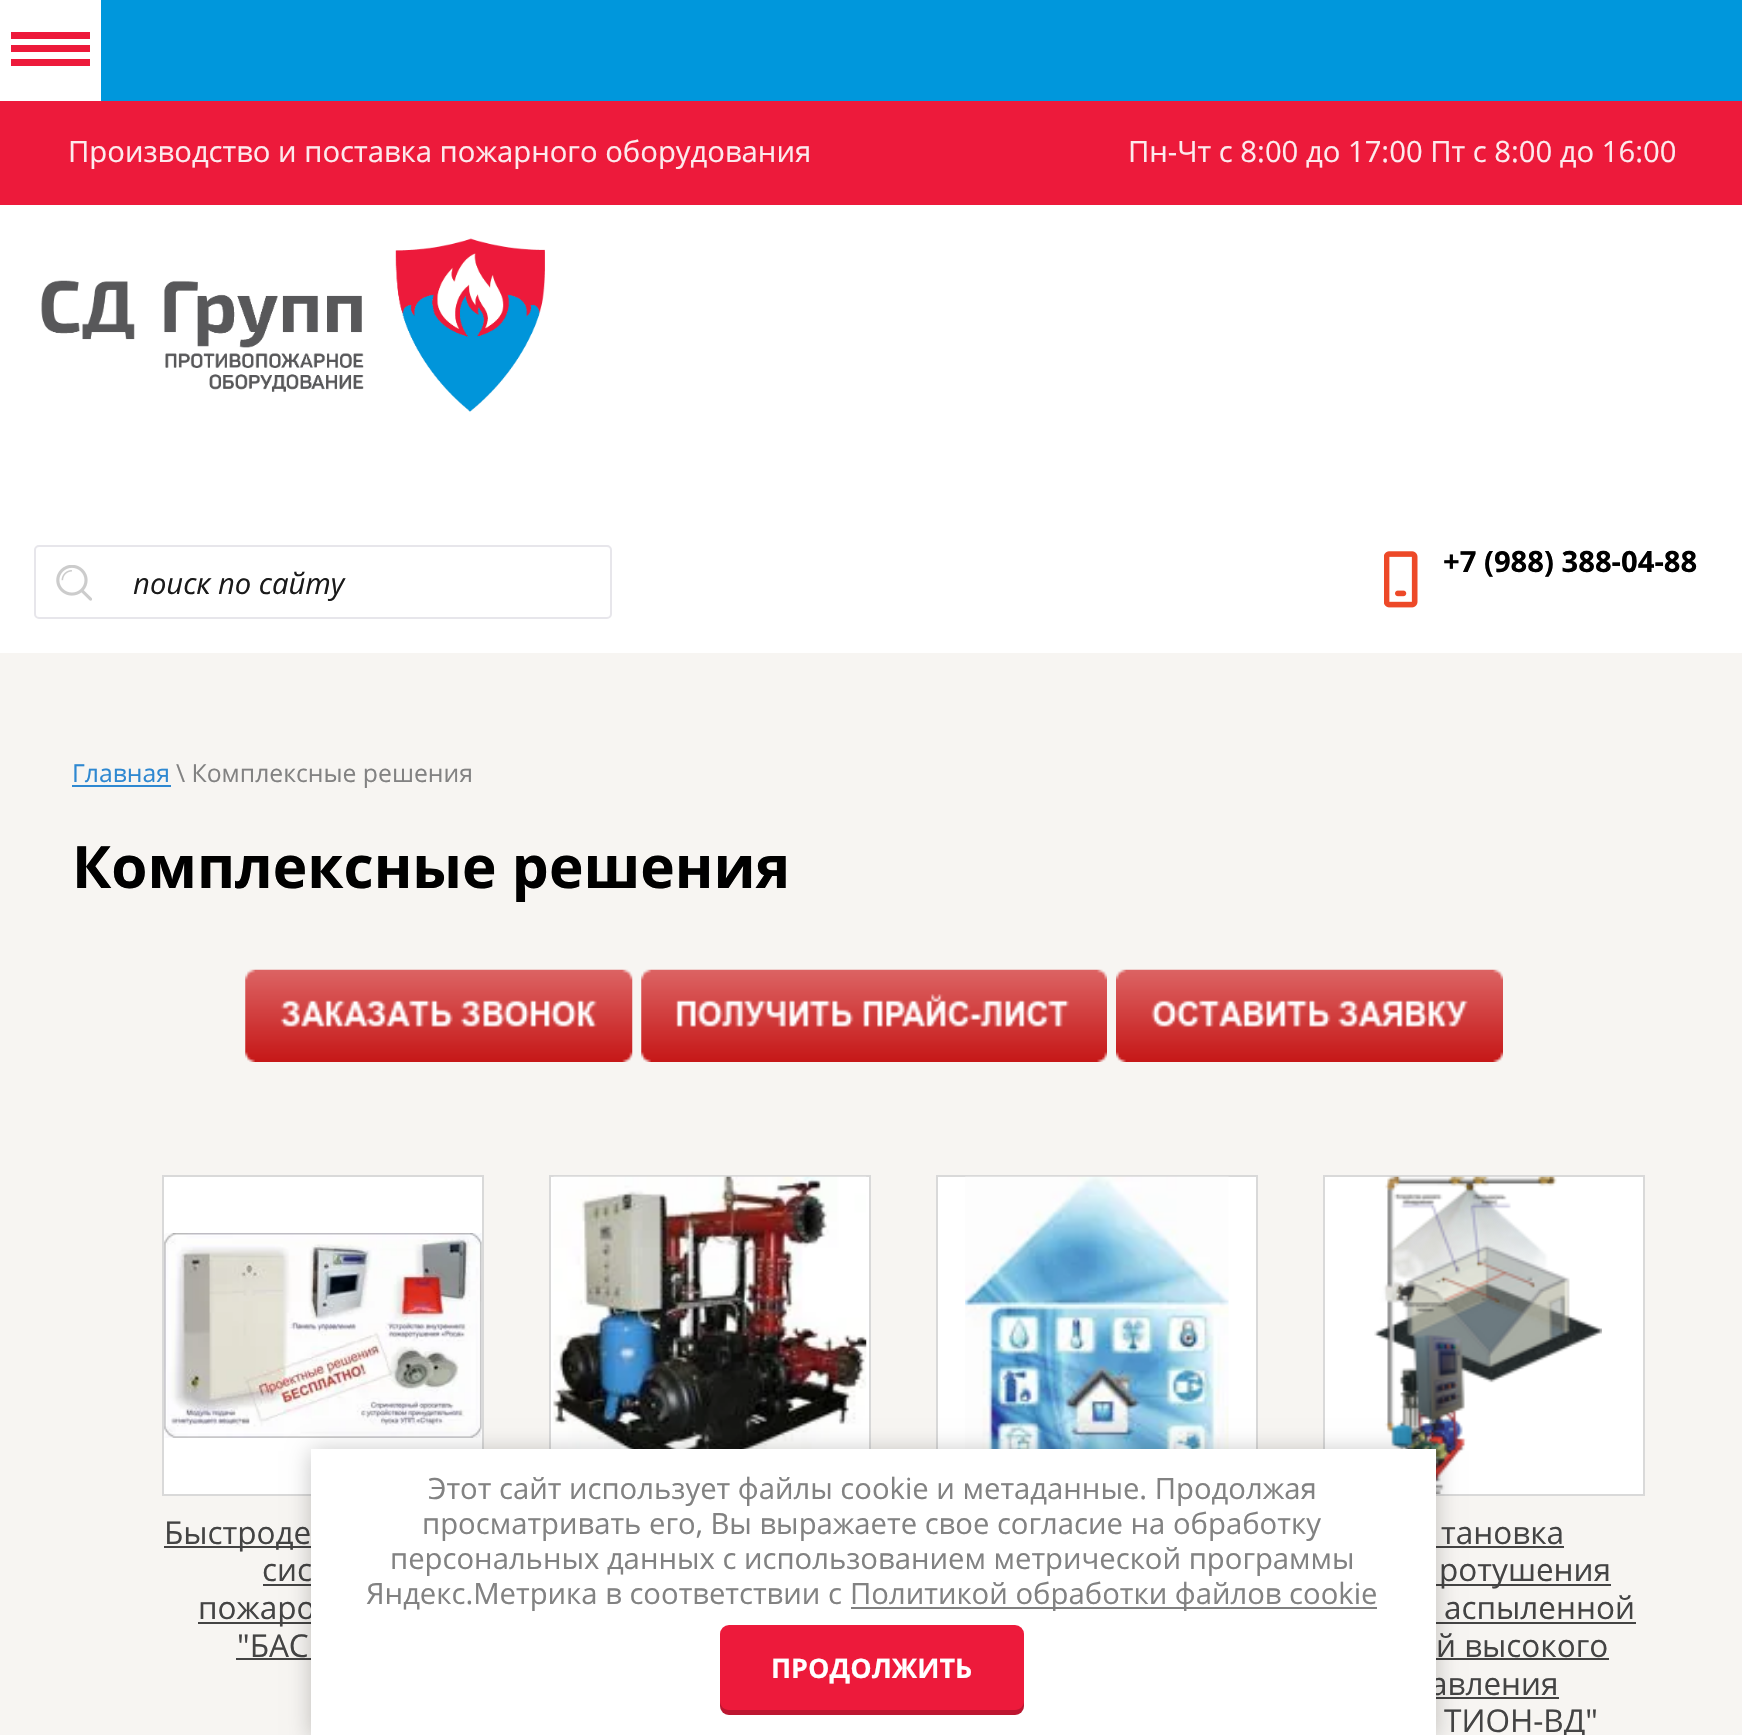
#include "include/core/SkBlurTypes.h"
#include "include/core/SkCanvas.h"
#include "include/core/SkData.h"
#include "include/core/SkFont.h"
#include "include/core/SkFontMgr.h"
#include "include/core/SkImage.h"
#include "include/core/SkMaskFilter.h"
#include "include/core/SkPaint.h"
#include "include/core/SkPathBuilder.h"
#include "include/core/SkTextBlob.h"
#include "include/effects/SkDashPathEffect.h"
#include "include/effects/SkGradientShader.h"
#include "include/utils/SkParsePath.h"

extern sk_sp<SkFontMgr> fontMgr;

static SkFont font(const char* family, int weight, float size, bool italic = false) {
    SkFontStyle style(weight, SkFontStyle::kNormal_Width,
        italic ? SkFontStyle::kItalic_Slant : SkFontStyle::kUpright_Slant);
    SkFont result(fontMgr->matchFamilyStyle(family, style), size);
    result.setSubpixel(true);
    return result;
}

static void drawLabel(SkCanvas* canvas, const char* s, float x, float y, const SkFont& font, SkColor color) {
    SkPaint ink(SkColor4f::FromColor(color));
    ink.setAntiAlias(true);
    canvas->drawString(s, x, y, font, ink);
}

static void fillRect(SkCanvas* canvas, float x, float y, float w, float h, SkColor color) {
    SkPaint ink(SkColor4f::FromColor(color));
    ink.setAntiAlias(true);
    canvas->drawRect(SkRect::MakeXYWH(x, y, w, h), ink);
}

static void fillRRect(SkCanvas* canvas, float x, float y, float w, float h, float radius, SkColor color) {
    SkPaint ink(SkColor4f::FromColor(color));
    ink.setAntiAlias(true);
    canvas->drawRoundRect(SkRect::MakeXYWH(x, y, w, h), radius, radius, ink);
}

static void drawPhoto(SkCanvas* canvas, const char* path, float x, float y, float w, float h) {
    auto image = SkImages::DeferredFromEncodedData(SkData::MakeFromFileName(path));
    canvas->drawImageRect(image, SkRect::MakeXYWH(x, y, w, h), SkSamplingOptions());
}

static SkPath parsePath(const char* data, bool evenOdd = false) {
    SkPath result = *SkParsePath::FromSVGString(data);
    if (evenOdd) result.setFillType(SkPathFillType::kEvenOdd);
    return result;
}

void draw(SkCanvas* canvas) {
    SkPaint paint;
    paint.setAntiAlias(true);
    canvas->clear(0xFFFFFFFF);
    fillRect(canvas, 101, 0, 1641, 101, 0xFF0097DC);
    fillRect(canvas, 11, 32, 79, 7, 0xFFED1A3B);
    fillRect(canvas, 11, 45, 79, 7, 0xFFED1A3B);
    fillRect(canvas, 11, 59, 79, 7, 0xFFED1A3B);
    fillRect(canvas, 0, 101, 1742, 104, 0xFFED1A3B);
    SkFont font1 = font("Open Sans", 400, 29.25f);
    drawLabel(canvas, "Производство и поставка пожарного оборудования", 68, 162, font1, 0xFFFDEAED);
    drawLabel(canvas, "Пн-Чт с 8:00 до 17:00 Пт с 8:00 до 16:00", 1128, 162, font1, 0xFFFDEAED);
    drawPhoto(canvas, "assets/img1.png", 41, 238, 504, 174);
    drawPhoto(canvas, "assets/img2.png", 1384, 551, 34, 57);
    SkFont font2 = font("Open Sans", 700, 29.25f);
    drawLabel(canvas, "+7 (988) 388-04-88", 1443, 572, font2, 0xFF000000);
    paint.setStroke(true);
    paint.setStrokeWidth(2);
    paint.setColor(0xFFE7E6EB);
    canvas->drawRoundRect(SkRect::MakeXYWH(35, 546, 576, 72), 4, 4, paint);
    drawPhoto(canvas, "assets/img3.png", 56, 565, 36, 36);
    SkFont font3 = font("Open Sans", 400, 29.25f, true);
    drawLabel(canvas, "поиск по сайту", 133, 594, font3, 0xFF1A1A1A);
    fillRect(canvas, 0, 653, 1742, 1082, 0xFFF7F5F2);
    SkFont font4 = font("Open Sans", 400, 24.75f);
    drawLabel(canvas, "Главная", 72, 782, font4, 0xFF2E88D1);
    fillRect(canvas, 72, 785, 99, 2, 0xFF2E88D1);
    drawLabel(canvas, "\\ Комплексные решения", 176, 782, font4, 0xFF828282);
    SkFont font5 = font("Open Sans", 700, 58.5f);
    drawLabel(canvas, "Комплексные решения", 72, 888, font5, 0xFF000000);
    drawPhoto(canvas, "assets/img4.png", 245, 969, 388, 93);
    drawPhoto(canvas, "assets/img5.png", 641, 969, 466, 93);
    drawPhoto(canvas, "assets/img6.png", 1116, 969, 387, 93);
    fillRect(canvas, 551, 1177, 318, 272, 0xFFFFFFFF);
    paint.setColor(0xFFD9D9D9);
    canvas->drawRect(SkRect::MakeXYWH(550, 1176, 320, 319), paint);
    drawPhoto(canvas, "assets/img7.png", 553, 1176, 314, 273);
    fillRect(canvas, 938, 1177, 318, 272, 0xFFFFFFFF);
    canvas->drawRect(SkRect::MakeXYWH(937, 1176, 320, 319), paint);
    drawPhoto(canvas, "assets/img8.png", 965, 1176, 264, 273);
    paint.setStroke(false);
    paint.setColor(0xFFFFFFFF);
    canvas->drawRect(SkRect::MakeXYWH(163, 1176, 320, 319), paint);
    paint.setStroke(true);
    paint.setColor(0xFFD9D9D9);
    canvas->drawRect(SkRect::MakeXYWH(163, 1176, 320, 319), paint);
    drawPhoto(canvas, "assets/img9.png", 164, 1233, 318, 205);
    fillRect(canvas, 164, 1546, 147, 2, 0xFF444444);
    SkFont font6 = font("Open Sans", 400, 31.5f);
    drawLabel(canvas, "Быстроде", 164, 1544, font6, 0xFF444444);
    drawLabel(canvas, "сис", 262, 1581, font6, 0xFF444444);
    fillRect(canvas, 263, 1584, 48, 2, 0xFF444444);
    fillRect(canvas, 198, 1622, 113, 2, 0xFF444444);
    drawLabel(canvas, "пожаро", 198, 1619, font6, 0xFF444444);
    drawLabel(canvas, "\"БАС", 237, 1657, font6, 0xFF444444);
    fillRect(canvas, 236, 1658, 75, 2, 0xFF444444);
    paint.setStroke(false);
    paint.setColor(0xFFFFFFFF);
    canvas->drawRect(SkRect::MakeXYWH(1324, 1176, 320, 319), paint);
    paint.setStroke(true);
    paint.setColor(0xFFD9D9D9);
    canvas->drawRect(SkRect::MakeXYWH(1324, 1176, 320, 319), paint);
    drawPhoto(canvas, "assets/img10.png", 1374, 1176, 228, 318);
    drawLabel(canvas, "тановка", 1441, 1544, font6, 0xFF444444);
    fillRect(canvas, 1436, 1546, 128, 2, 0xFF444444);
    fillRect(canvas, 1436, 1584, 175, 2, 0xFF444444);
    drawLabel(canvas, "ротушения", 1439, 1581, font6, 0xFF444444);
    drawLabel(canvas, "аспыленной", 1444, 1619, font6, 0xFF444444);
    fillRect(canvas, 1436, 1622, 200, 2, 0xFF444444);
    drawLabel(canvas, "й высокого", 1436, 1657, font6, 0xFF444444);
    fillRect(canvas, 1436, 1658, 173, 2, 0xFF444444);
    drawLabel(canvas, "авления", 1430, 1695, font6, 0xFF444444);
    fillRect(canvas, 1436, 1697, 123, 2, 0xFF444444);
    drawLabel(canvas, "ТИОН-ВД\"", 1444, 1732, font6, 0xFF444444);
    paint.setStroke(false);
    paint.setColor(0x3B000000);
    paint.setMaskFilter(SkMaskFilter::MakeBlur(kNormal_SkBlurStyle, 11));
    canvas->drawRect(SkRect::MakeXYWH(311, 1451, 1125, 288), paint);
    paint.setMaskFilter(nullptr);
    fillRect(canvas, 311, 1449, 1125, 286, 0xFFFFFFFF);
    drawLabel(canvas, "Этот сайт использует файлы cookie и метаданные. Продолжая", 428, 1499, font1, 0xFF828282);
    drawLabel(canvas, "просматривать его, Вы выражаете свое согласие на обработку", 422, 1534, font1, 0xFF828282);
    drawLabel(canvas, "персональных данных с использованием метрической программы", 390, 1569, font1, 0xFF828282);
    drawLabel(canvas, "Яндекс.Метрика в соответствии с", 366, 1604, font1, 0xFF828282);
    fillRect(canvas, 851, 1607, 526, 2, 0xFF808080);
    drawLabel(canvas, "Политикой обработки файлов cookie", 850, 1604, font1, 0xFF828282);
    fillRRect(canvas, 720, 1625, 304, 90, 9, 0xFFED1A3B);
    paint.setColor(0x33000000);
    canvas->drawPath(parsePath("M720 1701V1706C720 1711 724 1715 729 1715H1015C1020 1715 1024 1711 1024 1706V1701C1024 1706 1020 1710 1015 1710H729C724 1710 720 1706 720 1701Z"), paint);
    SkFont font7 = font("Open Sans", 700, 27);
    drawLabel(canvas, "ПРОДОЛЖИТЬ", 771, 1678, font7, 0xFFFFFFFF);
}
